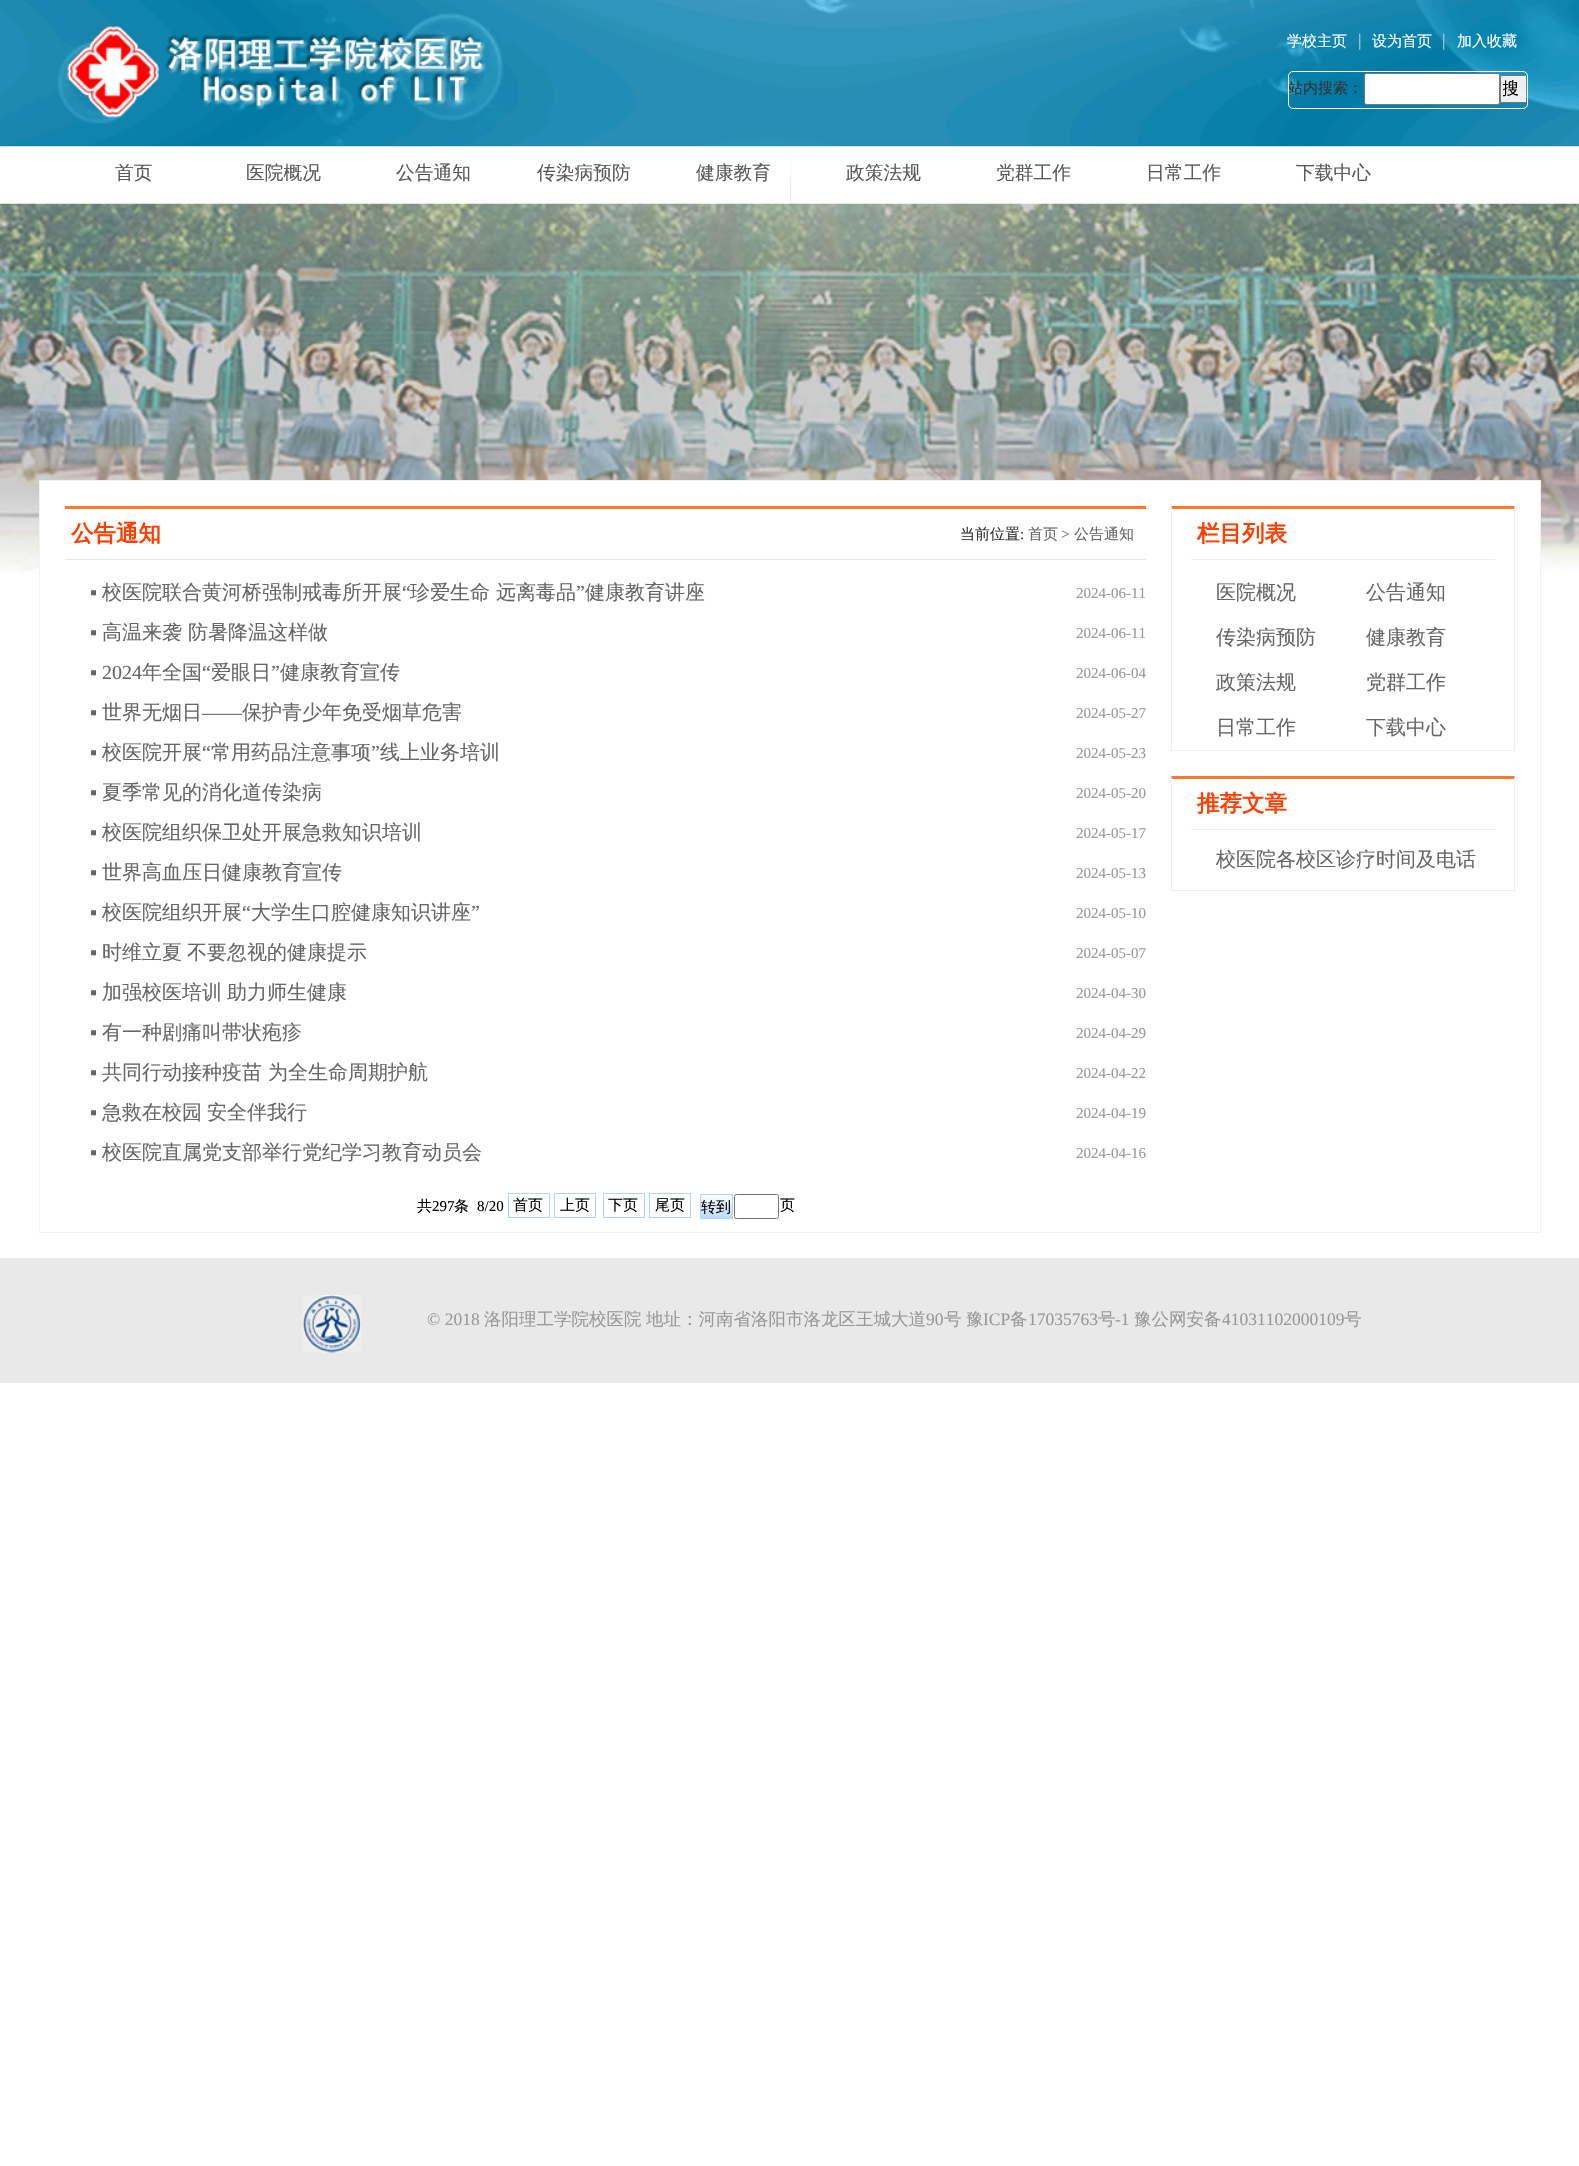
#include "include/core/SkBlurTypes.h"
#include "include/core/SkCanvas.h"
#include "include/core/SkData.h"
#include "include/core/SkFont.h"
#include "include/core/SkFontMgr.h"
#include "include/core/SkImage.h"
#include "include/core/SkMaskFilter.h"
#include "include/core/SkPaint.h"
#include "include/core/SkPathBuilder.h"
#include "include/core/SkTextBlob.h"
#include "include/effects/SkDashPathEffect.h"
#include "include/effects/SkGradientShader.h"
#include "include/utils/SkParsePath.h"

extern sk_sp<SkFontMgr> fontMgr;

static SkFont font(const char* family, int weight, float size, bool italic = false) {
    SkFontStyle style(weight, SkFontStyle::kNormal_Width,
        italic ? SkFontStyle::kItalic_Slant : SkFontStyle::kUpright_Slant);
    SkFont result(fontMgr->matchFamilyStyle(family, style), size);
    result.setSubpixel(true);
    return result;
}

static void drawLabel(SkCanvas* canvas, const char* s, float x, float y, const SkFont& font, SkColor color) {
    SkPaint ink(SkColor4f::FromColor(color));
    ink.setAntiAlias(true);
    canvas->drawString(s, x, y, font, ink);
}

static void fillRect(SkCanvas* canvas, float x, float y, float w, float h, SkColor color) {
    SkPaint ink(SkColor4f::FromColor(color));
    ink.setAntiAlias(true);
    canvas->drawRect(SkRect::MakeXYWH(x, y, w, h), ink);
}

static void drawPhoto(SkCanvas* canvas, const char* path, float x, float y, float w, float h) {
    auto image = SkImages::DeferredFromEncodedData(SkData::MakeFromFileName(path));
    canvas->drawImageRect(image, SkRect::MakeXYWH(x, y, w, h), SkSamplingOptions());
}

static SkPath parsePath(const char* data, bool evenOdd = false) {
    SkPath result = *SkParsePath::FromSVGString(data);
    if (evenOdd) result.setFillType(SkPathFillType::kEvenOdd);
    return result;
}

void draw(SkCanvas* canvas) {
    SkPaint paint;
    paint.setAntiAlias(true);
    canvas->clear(0xFFFFFFFF);
    drawPhoto(canvas, "assets/img1.png", 0, 0, 1579, 147);
    drawPhoto(canvas, "assets/img2.png", 66, 25, 420, 93);
    SkFont font1 = font("WenQuanYi Zen Hei", 500, 15);
    drawLabel(canvas, "学校主页", 1287, 46, font1, 0xFFFFFFFF);
    SkFont font2 = font("Liberation Serif", 400, 17.5f);
    drawLabel(canvas, "|", 1358, 46, font2, 0xFFCCCCCC);
    drawLabel(canvas, "设为首页", 1372, 46, font1, 0xFFFFFFFF);
    drawLabel(canvas, "|", 1442, 46, font2, 0xFFCCCCCC);
    drawLabel(canvas, "加入收藏", 1457, 46, font1, 0xFFFFFFFF);
    paint.setStroke(true);
    paint.setStrokeWidth(1);
    paint.setColor(0xFFFFFFFF);
    canvas->drawRoundRect(SkRect::MakeXYWH(1288.5f, 71.5f, 239, 37), 4.5f, 4.5f, paint);
    canvas->save();
    canvas->clipPath(parsePath("M1293 73H1522C1524 73 1526 75 1526 77V104C1526 106 1524 108 1522 108H1293C1291 108 1289 106 1289 104V77C1289 75 1291 73 1293 73Z"), true);
    drawLabel(canvas, "站内搜索：", 1288, 93, font1, 0xFF333333);
    canvas->restore();
    paint.setStroke(false);
    canvas->drawRoundRect(SkRect::MakeXYWH(1364.5f, 73.5f, 135, 31), 2, 2, paint);
    paint.setStroke(true);
    paint.setColor(0xFF767676);
    canvas->drawRoundRect(SkRect::MakeXYWH(1364.5f, 73.5f, 135, 31), 2, 2, paint);
    paint.setStroke(false);
    paint.setColor(0xFFEFEFEF);
    canvas->drawPath(parsePath("M1502.5 75H1526V103H1502.5C1501 103 1500 102 1500 100.5V77.5C1500 76 1501 75 1502.5 75Z"), paint);
    paint.setColor(0xFF767676);
    canvas->drawPath(parsePath("M1502.5 75C1501 75 1500 76 1500 77.5V100.5C1500 102 1501 103 1502.5 103H1526V102H1502.5C1501.5 102 1501 101.5 1501 100.5V77.5C1501 76.5 1501.5 76 1502.5 76H1526L1525.5 75Z"), paint);
    canvas->save();
    canvas->clipRect(SkRect::MakeXYWH(1503, 78, 32, 22));
    SkFont font3 = font("WenQuanYi Zen Hei", 500, 17);
    drawLabel(canvas, "搜", 1502, 94, font3, 0xFF000000);
    canvas->restore();
    drawPhoto(canvas, "assets/img3.png", 790, 146, 2, 58);
    SkFont font4 = font("WenQuanYi Zen Hei", 500, 18.75f);
    drawLabel(canvas, "首页", 115, 179, font4, 0xFF585858);
    drawLabel(canvas, "医院概况", 246, 179, font4, 0xFF585858);
    drawLabel(canvas, "公告通知", 396, 179, font4, 0xFF585858);
    drawLabel(canvas, "传染病预防", 537, 179, font4, 0xFF585858);
    drawLabel(canvas, "健康教育", 696, 179, font4, 0xFF585858);
    drawLabel(canvas, "政策法规", 846, 179, font4, 0xFF585858);
    drawLabel(canvas, "党群工作", 996, 179, font4, 0xFF585858);
    drawLabel(canvas, "日常工作", 1146, 179, font4, 0xFF585858);
    drawLabel(canvas, "下载中心", 1296, 179, font4, 0xFF585858);
    drawPhoto(canvas, "assets/img4.png", 0, 203, 1579, 376);
    fillRect(canvas, 40, 481, 1500, 98, 0xFFFFFFFF);
    paint.setStroke(true);
    paint.setColor(0xFFF2F2F2);
    canvas->drawRect(SkRect::MakeXYWH(39.5f, 480.5f, 1501, 752), paint);
    fillRect(canvas, 65, 506, 1081, 3, 0xFFFF772C);
    fillRect(canvas, 65, 559, 1081, 1, 0xFFE6E6E6);
    SkFont font5 = font("WenQuanYi Zen Hei", 700, 22.5f);
    drawLabel(canvas, "公告通知", 71, 541, font5, 0xFFFF3F00);
    drawLabel(canvas, "当前位置", 960, 539, font1, 0xFF333333);
    SkFont font6 = font("Liberation Serif", 400, 15);
    drawLabel(canvas, ":", 1020, 539, font6, 0xFF333333);
    drawLabel(canvas, "首页", 1028, 539, font1, 0xFF666666);
    drawLabel(canvas, ">", 1061, 539, font6, 0xFF666666);
    drawLabel(canvas, "公告通知", 1074, 539, font1, 0xFF666666);
    SkFont font7 = font("WenQuanYi Zen Hei", 500, 20);
    drawLabel(canvas, "校医院联合黄河桥强制戒毒所开展", 102, 599, font7, 0xFF666666);
    SkFont font8 = font("Liberation Serif", 400, 20);
    drawLabel(canvas, "“", 402, 599, font8, 0xFF666666);
    drawLabel(canvas, "珍爱生命 远离毒品", 410, 599, font7, 0xFF666666);
    drawLabel(canvas, "”", 576, 599, font8, 0xFF666666);
    drawLabel(canvas, "健康教育讲座", 585, 599, font7, 0xFF666666);
    drawLabel(canvas, "▪", 90, 599, font8, 0xFF666666);
    drawLabel(canvas, "2024-06-11", 1076, 598, font6, 0xFF999999);
    drawLabel(canvas, "▪", 90, 639, font8, 0xFF666666);
    drawLabel(canvas, "高温来袭 防暑降温这样做", 102, 639, font7, 0xFF666666);
    drawLabel(canvas, "2024-06-11", 1076, 638, font6, 0xFF999999);
    drawLabel(canvas, "▪ 2024", 90, 679, font8, 0xFF666666);
    drawLabel(canvas, "年全国", 142, 679, font7, 0xFF666666);
    drawLabel(canvas, "“", 202, 679, font8, 0xFF666666);
    drawLabel(canvas, "爱眼日", 211, 679, font7, 0xFF666666);
    drawLabel(canvas, "”", 271, 679, font8, 0xFF666666);
    drawLabel(canvas, "健康教育宣传", 280, 679, font7, 0xFF666666);
    drawLabel(canvas, "2024-06-04", 1076, 678, font6, 0xFF999999);
    drawLabel(canvas, "▪", 90, 719, font8, 0xFF666666);
    drawLabel(canvas, "世界无烟日", 102, 719, font7, 0xFF666666);
    drawLabel(canvas, "——", 202, 719, font8, 0xFF666666);
    drawLabel(canvas, "保护青少年免受烟草危害", 242, 719, font7, 0xFF666666);
    drawLabel(canvas, "2024-05-27", 1076, 718, font6, 0xFF999999);
    drawLabel(canvas, "校医院开展", 102, 759, font7, 0xFF666666);
    drawLabel(canvas, "“", 202, 759, font8, 0xFF666666);
    drawLabel(canvas, "常用药品注意事项", 211, 759, font7, 0xFF666666);
    drawLabel(canvas, "”", 371, 759, font8, 0xFF666666);
    drawLabel(canvas, "线上业务培训", 380, 759, font7, 0xFF666666);
    drawLabel(canvas, "▪", 90, 759, font8, 0xFF666666);
    drawLabel(canvas, "2024-05-23", 1076, 758, font6, 0xFF999999);
    drawLabel(canvas, "▪", 90, 799, font8, 0xFF666666);
    drawLabel(canvas, "夏季常见的消化道传染病", 102, 799, font7, 0xFF666666);
    drawLabel(canvas, "2024-05-20", 1076, 798, font6, 0xFF999999);
    drawLabel(canvas, "▪", 90, 839, font8, 0xFF666666);
    drawLabel(canvas, "校医院组织保卫处开展急救知识培训", 102, 839, font7, 0xFF666666);
    drawLabel(canvas, "2024-05-17", 1076, 838, font6, 0xFF999999);
    drawLabel(canvas, "▪", 90, 879, font8, 0xFF666666);
    drawLabel(canvas, "世界高血压日健康教育宣传", 102, 879, font7, 0xFF666666);
    drawLabel(canvas, "2024-05-13", 1076, 878, font6, 0xFF999999);
    drawLabel(canvas, "校医院组织开展", 102, 919, font7, 0xFF666666);
    drawLabel(canvas, "“", 242, 919, font8, 0xFF666666);
    drawLabel(canvas, "大学生口腔健康知识讲座", 251, 919, font7, 0xFF666666);
    drawLabel(canvas, "”", 471, 919, font8, 0xFF666666);
    drawLabel(canvas, "▪", 90, 919, font8, 0xFF666666);
    drawLabel(canvas, "2024-05-10", 1076, 918, font6, 0xFF999999);
    drawLabel(canvas, "▪", 90, 959, font8, 0xFF666666);
    drawLabel(canvas, "时维立夏", 102, 959, font7, 0xFF666666);
    drawLabel(canvas, "不要忽视的健康提示", 187, 959, font7, 0xFF666666);
    drawLabel(canvas, "2024-05-07", 1076, 958, font6, 0xFF999999);
    drawLabel(canvas, "▪", 90, 999, font8, 0xFF666666);
    drawLabel(canvas, "加强校医培训", 102, 999, font7, 0xFF666666);
    drawLabel(canvas, "助力师生健康", 227, 999, font7, 0xFF666666);
    drawLabel(canvas, "2024-04-30", 1076, 998, font6, 0xFF999999);
    drawLabel(canvas, "▪", 90, 1039, font8, 0xFF666666);
    drawLabel(canvas, "有一种剧痛叫带状疱疹", 102, 1039, font7, 0xFF666666);
    drawLabel(canvas, "2024-04-29", 1076, 1038, font6, 0xFF999999);
    drawLabel(canvas, "▪", 90, 1079, font8, 0xFF666666);
    drawLabel(canvas, "共同行动接种疫苗 为全生命周期护航", 102, 1079, font7, 0xFF666666);
    drawLabel(canvas, "2024-04-22", 1076, 1078, font6, 0xFF999999);
    drawLabel(canvas, "▪", 90, 1119, font8, 0xFF666666);
    drawLabel(canvas, "急救在校园", 102, 1119, font7, 0xFF666666);
    drawLabel(canvas, "安全伴我行", 207, 1119, font7, 0xFF666666);
    drawLabel(canvas, "2024-04-19", 1076, 1118, font6, 0xFF999999);
    drawLabel(canvas, "▪", 90, 1159, font8, 0xFF666666);
    drawLabel(canvas, "校医院直属党支部举行党纪学习教育动员会", 102, 1159, font7, 0xFF666666);
    drawLabel(canvas, "2024-04-16", 1076, 1158, font6, 0xFF999999);
    drawLabel(canvas, "共", 417, 1211, font1, 0xFF000000);
    drawLabel(canvas, "297", 432, 1211, font6, 0xFF000000);
    drawLabel(canvas, "条", 454, 1211, font1, 0xFF000000);
    drawLabel(canvas, "8/20", 477, 1211, font6, 0xFF000000);
    paint.setColor(0xFFAFD5F5);
    canvas->drawRect(SkRect::MakeXYWH(508.5f, 1193.5f, 41, 24), paint);
    drawLabel(canvas, "首页", 513, 1210, font1, 0xFF000000);
    canvas->drawRect(SkRect::MakeXYWH(554.5f, 1193.5f, 41, 24), paint);
    drawLabel(canvas, "上页", 560, 1210, font1, 0xFF000000);
    canvas->drawRect(SkRect::MakeXYWH(603.5f, 1193.5f, 41, 24), paint);
    drawLabel(canvas, "下页", 608, 1210, font1, 0xFF000000);
    canvas->drawRect(SkRect::MakeXYWH(649.5f, 1193.5f, 41, 24), paint);
    drawLabel(canvas, "尾页", 655, 1210, font1, 0xFF000000);
    paint.setStroke(false);
    {
        const SkColor colors[] = {0xFFFFFFFF, 0xFFBDDBF7};
        const float stops[] = {0, 1};
        const SkPoint ends[] = {{701, 1195}, {701, 1218}};
        paint.setShader(SkGradientShader::MakeLinear(ends, colors, stops, 2, SkTileMode::kClamp));
        paint.setAlpha(255);
    }
    canvas->drawRect(SkRect::MakeXYWH(701, 1196, 31, 22), paint);
    paint.setStroke(true);
    paint.setShader(nullptr);
    paint.setColor(0xFFAFD5F5);
    canvas->drawRect(SkRect::MakeXYWH(700.5f, 1194.5f, 32, 24), paint);
    drawLabel(canvas, "转到", 701, 1212, font1, 0xFF000000);
    paint.setColor(0xFF767676);
    canvas->drawRoundRect(SkRect::MakeXYWH(734.5f, 1194.5f, 44, 24), 2, 2, paint);
    drawLabel(canvas, "页", 780, 1210, font1, 0xFF000000);
    paint.setStroke(false);
    paint.setColor(0xFFFF772C);
    canvas->drawPath(parsePath("M1171 506H1515L1514 509H1172Z"), paint);
    paint.setColor(0xFFEEEEEE);
    canvas->drawPath(parsePath("M1515 506V751L1514 750V509Z"), paint);
    fillRect(canvas, 1171, 750, 344, 1, 0xFFEEEEEE);
    canvas->drawPath(parsePath("M1171 751V506L1172 509V750Z"), paint);
    fillRect(canvas, 1191, 559, 304, 1, 0xFFEEEEEE);
    drawLabel(canvas, "栏目列表", 1197, 541, font5, 0xFFFF3F00);
    drawLabel(canvas, "医院概况", 1216, 599, font7, 0xFF666666);
    drawLabel(canvas, "公告通知", 1366, 599, font7, 0xFF666666);
    drawLabel(canvas, "传染病预防", 1216, 644, font7, 0xFF666666);
    drawLabel(canvas, "健康教育", 1366, 644, font7, 0xFF666666);
    drawLabel(canvas, "政策法规", 1216, 689, font7, 0xFF666666);
    drawLabel(canvas, "党群工作", 1366, 689, font7, 0xFF666666);
    drawLabel(canvas, "日常工作", 1216, 734, font7, 0xFF666666);
    drawLabel(canvas, "下载中心", 1366, 734, font7, 0xFF666666);
    paint.setColor(0xFFFF772C);
    canvas->drawPath(parsePath("M1171 776H1515L1514 779H1172Z"), paint);
    paint.setColor(0xFFEEEEEE);
    canvas->drawPath(parsePath("M1515 776V891L1514 890V779Z"), paint);
    fillRect(canvas, 1171, 890, 344, 1, 0xFFEEEEEE);
    canvas->drawPath(parsePath("M1171 891V776L1172 779V890Z"), paint);
    fillRect(canvas, 1191, 829, 304, 1, 0xFFEEEEEE);
    drawLabel(canvas, "推荐文章", 1197, 811, font5, 0xFFFF3F00);
    drawLabel(canvas, "校医院各校区诊疗时间及电话", 1216, 866, font7, 0xFF666666);
    fillRect(canvas, 0, 1258, 1579, 125, 0xFFE9E9E9);
    drawPhoto(canvas, "assets/img5.png", 302, 1295, 60, 58);
    drawLabel(canvas, "© 2018", 427, 1325, font2, 0xFF999999);
    SkFont font9 = font("WenQuanYi Zen Hei", 500, 17.5f);
    drawLabel(canvas, "洛阳理工学院校医院", 484, 1325, font9, 0xFF999999);
    drawLabel(canvas, "地址：河南省洛阳市洛龙区王城大道", 646, 1325, font9, 0xFF999999);
    drawLabel(canvas, "90", 926, 1325, font2, 0xFF999999);
    drawLabel(canvas, "号", 944, 1325, font9, 0xFF999999);
    drawLabel(canvas, "豫", 966, 1325, font9, 0xFF999999);
    drawLabel(canvas, "ICP", 983, 1325, font2, 0xFF999999);
    drawLabel(canvas, "备", 1010, 1325, font9, 0xFF999999);
    drawLabel(canvas, "17035763", 1028, 1325, font2, 0xFF999999);
    drawLabel(canvas, "号", 1098, 1325, font9, 0xFF999999);
    drawLabel(canvas, "-1", 1115, 1325, font2, 0xFF999999);
    drawLabel(canvas, "豫公网安备", 1134, 1325, font9, 0xFF999999);
    drawLabel(canvas, "41031102000109", 1222, 1325, font2, 0xFF999999);
    drawLabel(canvas, "号", 1344, 1325, font9, 0xFF999999);
}
